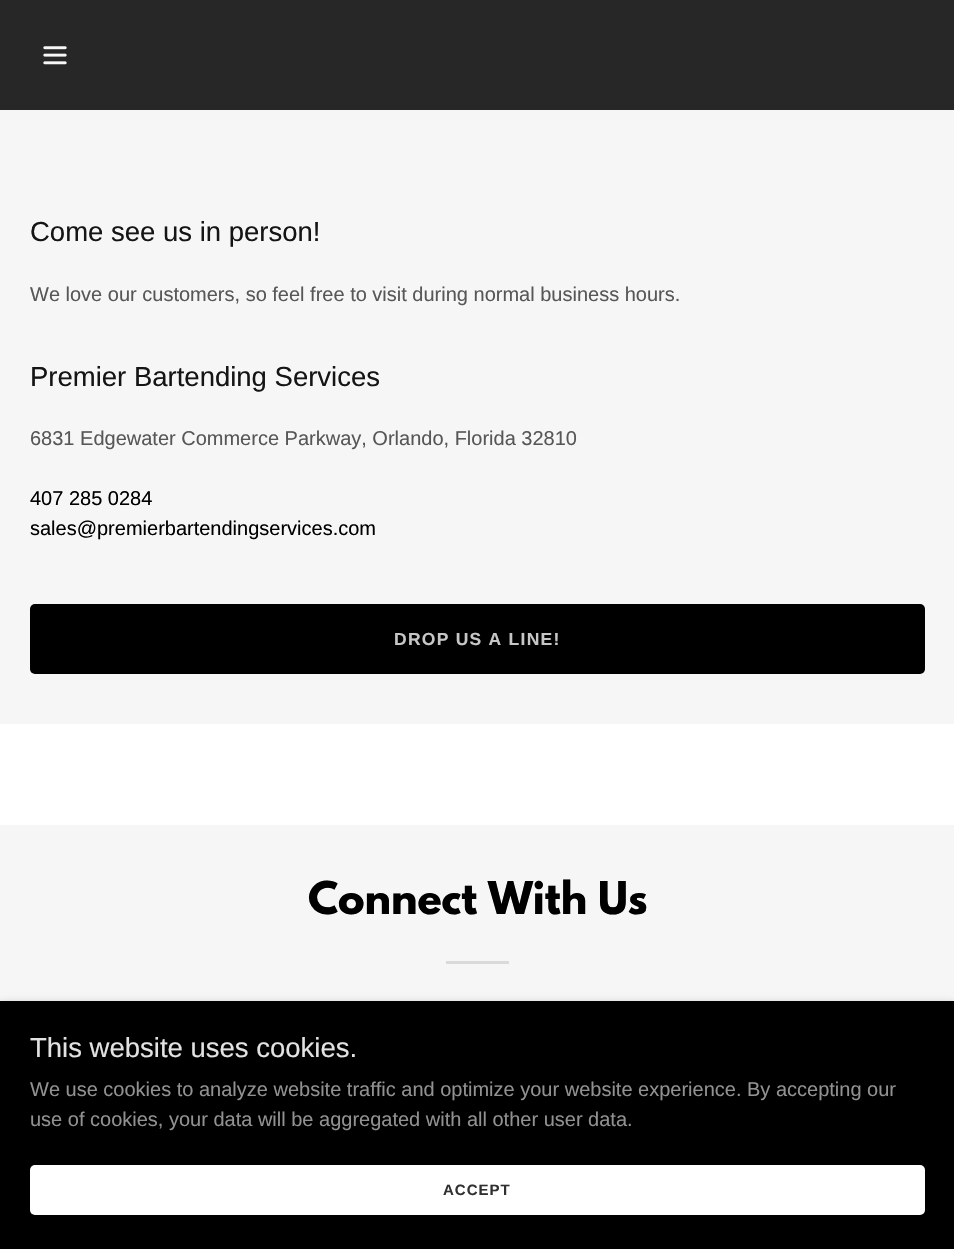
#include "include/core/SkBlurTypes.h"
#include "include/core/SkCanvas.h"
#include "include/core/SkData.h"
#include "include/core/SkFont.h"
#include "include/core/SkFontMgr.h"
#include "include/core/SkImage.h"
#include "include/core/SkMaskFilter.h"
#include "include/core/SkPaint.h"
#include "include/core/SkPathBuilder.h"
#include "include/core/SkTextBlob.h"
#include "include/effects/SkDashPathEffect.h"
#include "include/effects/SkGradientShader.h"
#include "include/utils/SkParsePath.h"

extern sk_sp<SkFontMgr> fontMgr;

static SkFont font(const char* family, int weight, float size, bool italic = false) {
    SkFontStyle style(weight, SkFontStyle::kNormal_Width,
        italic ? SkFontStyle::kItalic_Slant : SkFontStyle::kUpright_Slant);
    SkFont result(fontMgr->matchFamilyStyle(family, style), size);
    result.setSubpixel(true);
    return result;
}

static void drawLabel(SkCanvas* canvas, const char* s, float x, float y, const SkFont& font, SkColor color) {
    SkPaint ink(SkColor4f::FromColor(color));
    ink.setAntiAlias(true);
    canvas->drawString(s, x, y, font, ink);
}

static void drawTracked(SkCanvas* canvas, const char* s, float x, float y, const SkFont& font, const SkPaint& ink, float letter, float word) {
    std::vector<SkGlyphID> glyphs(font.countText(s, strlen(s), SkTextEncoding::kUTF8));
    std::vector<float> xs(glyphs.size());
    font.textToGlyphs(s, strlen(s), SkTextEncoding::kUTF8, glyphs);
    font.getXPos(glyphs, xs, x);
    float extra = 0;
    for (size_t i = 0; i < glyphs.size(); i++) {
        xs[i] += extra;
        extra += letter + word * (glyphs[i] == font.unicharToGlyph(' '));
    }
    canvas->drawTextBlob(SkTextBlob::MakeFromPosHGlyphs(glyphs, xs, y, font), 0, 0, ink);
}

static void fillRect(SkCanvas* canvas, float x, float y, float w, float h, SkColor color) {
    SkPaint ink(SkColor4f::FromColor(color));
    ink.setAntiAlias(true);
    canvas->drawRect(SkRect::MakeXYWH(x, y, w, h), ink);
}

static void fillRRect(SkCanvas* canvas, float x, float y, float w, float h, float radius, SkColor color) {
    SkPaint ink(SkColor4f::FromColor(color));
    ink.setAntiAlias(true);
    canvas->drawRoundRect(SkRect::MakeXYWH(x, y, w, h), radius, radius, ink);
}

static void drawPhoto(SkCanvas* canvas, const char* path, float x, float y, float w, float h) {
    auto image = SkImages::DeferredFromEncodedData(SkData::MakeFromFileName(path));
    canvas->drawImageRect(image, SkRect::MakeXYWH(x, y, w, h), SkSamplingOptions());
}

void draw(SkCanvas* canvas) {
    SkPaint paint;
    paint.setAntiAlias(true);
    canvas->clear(0xFFF6F6F6);
    fillRect(canvas, 0, 0, 954, 110, 0xFF272727);
    drawPhoto(canvas, "assets/img1.png", 43, 46, 24, 19);
    SkFont font1 = font("Liberation Sans", 400, 27.5f);
    drawLabel(canvas, "Come see us in person!", 30, 241, font1, 0xFF151515);
    SkFont font2 = font("Liberation Sans", 400, 20);
    drawLabel(canvas, "We love our customers, so feel free to visit during normal business hours.", 30, 301, font2, 0xFF575757);
    drawLabel(canvas, "Premier Bartending Services", 30, 386, font1, 0xFF151515);
    drawLabel(canvas, "6831 Edgewater Commerce Parkway, Orlando, Florida 32810", 30, 445, font2, 0xFF575757);
    drawLabel(canvas, "407 285 0284", 30, 505, font2, 0xFF000000);
    drawLabel(canvas, "sales@premierbartendingservices.com", 30, 535, font2, 0xFF000000);
    fillRRect(canvas, 30, 604, 895, 70, 5, 0xFF000000);
    SkFont font3 = font("Liberation Sans", 700, 17.5f);
    paint.setColor(0xFFC6C6C6);
    drawTracked(canvas, "DROP US A LINE!", 394, 645, font3, paint, 1.25f, 0);
    fillRect(canvas, 0, 724, 954, 101, 0xFFFFFFFF);
    SkFont font4 = font("League Spartan", 700, 40);
    drawLabel(canvas, "Connect With Us", 308, 914, font4, 0xFF000000);
    fillRect(canvas, 446, 961, 63, 3, 0xFFDADADA);
    paint.setColor(0x4D000000);
    paint.setMaskFilter(SkMaskFilter::MakeBlur(kNormal_SkBlurStyle, 4));
    canvas->drawRect(SkRect::MakeXYWH(0, 1004, 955, 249), paint);
    paint.setMaskFilter(nullptr);
    fillRect(canvas, 0, 1001, 954, 248, 0xFF000000);
    drawLabel(canvas, "This website uses cookies.", 30, 1057, font1, 0xFFE2E2E2);
    drawLabel(canvas, "We use cookies to analyze website traffic and optimize your website experience. By accepting our", 30, 1096, font2, 0xFF919191);
    drawLabel(canvas, "use of cookies, your data will be aggregated with all other user data.", 30, 1126, font2, 0xFF919191);
    fillRRect(canvas, 30, 1165, 895, 50, 5, 0xFFFFFFFF);
    SkFont font5 = font("Liberation Sans", 700, 15);
    paint.setColor(0xFF303030);
    drawTracked(canvas, "ACCEPT", 443, 1195, font5, paint, 1, 0);
}
